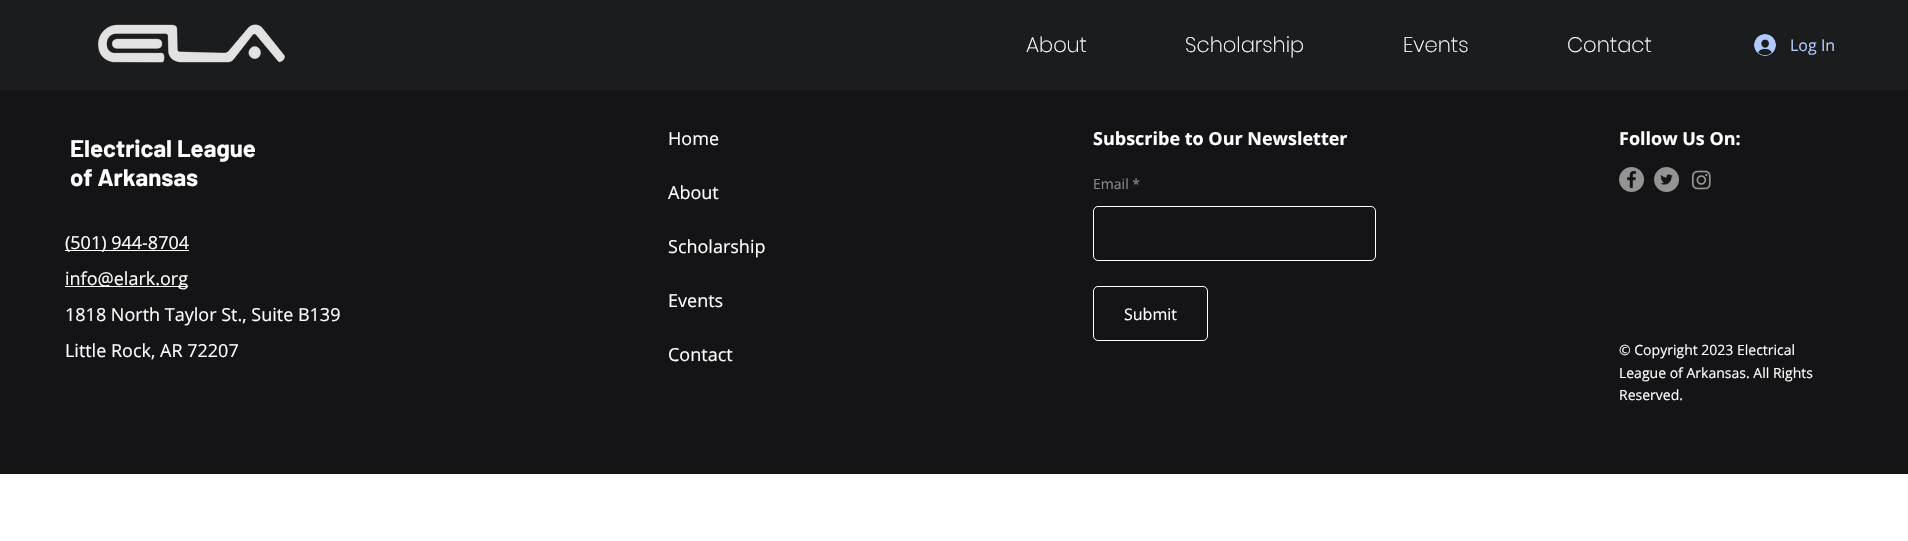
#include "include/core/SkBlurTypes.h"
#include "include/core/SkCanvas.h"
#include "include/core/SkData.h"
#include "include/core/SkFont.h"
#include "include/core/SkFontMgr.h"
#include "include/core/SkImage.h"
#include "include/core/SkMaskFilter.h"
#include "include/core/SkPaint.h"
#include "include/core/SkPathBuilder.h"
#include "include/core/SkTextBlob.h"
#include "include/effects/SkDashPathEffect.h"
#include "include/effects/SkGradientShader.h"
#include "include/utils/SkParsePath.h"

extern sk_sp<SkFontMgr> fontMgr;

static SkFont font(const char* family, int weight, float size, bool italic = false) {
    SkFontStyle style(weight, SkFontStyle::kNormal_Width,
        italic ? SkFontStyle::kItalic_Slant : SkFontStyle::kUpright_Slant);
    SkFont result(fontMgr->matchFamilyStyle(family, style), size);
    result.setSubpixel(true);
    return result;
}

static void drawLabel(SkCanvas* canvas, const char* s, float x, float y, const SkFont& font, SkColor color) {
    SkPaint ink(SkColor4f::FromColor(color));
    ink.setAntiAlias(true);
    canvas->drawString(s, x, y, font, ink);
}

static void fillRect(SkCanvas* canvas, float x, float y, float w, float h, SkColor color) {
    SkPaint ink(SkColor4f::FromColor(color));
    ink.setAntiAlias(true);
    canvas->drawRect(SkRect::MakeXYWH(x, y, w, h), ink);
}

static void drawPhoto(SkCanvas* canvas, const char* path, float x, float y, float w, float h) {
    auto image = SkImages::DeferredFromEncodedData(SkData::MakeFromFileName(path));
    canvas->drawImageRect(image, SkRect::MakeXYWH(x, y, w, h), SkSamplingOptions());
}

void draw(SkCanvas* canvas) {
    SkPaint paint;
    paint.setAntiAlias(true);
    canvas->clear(0xFFFFFFFF);
    fillRect(canvas, 0, 0, 1908, 90, 0xFF1B1C1E);
    drawPhoto(canvas, "assets/img1.png", 98, 24, 187, 39);
    SkFont font1 = font("Poppins", 200, 21);
    drawLabel(canvas, "About", 1026, 52, font1, 0xFFFFFFFF);
    drawLabel(canvas, "Scholarship", 1185, 52, font1, 0xFFFFFFFF);
    drawLabel(canvas, "Events", 1403, 52, font1, 0xFFFFFFFF);
    drawLabel(canvas, "Contact", 1567, 52, font1, 0xFFFFFFFF);
    drawPhoto(canvas, "assets/img2.png", 1754, 34, 22, 22);
    SkFont font2 = font("Open Sans", 400, 16);
    drawLabel(canvas, "Log In", 1790, 51, font2, 0xFFB0CAFC);
    fillRect(canvas, 0, 90, 1908, 384, 0xFF141416);
    SkFont font3 = font("Barlow", 700, 24);
    drawLabel(canvas, "Electrical League", 70, 157, font3, 0xFFFFFFFF);
    drawLabel(canvas, "of Arkansas", 70, 186, font3, 0xFFFFFFFF);
    fillRect(canvas, 65, 250, 124, 1, 0xFFFFFFFF);
    SkFont font4 = font("Open Sans", 400, 18);
    drawLabel(canvas, "(501) 944-8704", 65, 249, font4, 0xFFFFFFFF);
    fillRect(canvas, 65, 286, 123, 1, 0xFFFFFFFF);
    drawLabel(canvas, "info@elark.org", 65, 285, font4, 0xFFFFFFFF);
    drawLabel(canvas, "1818 North Taylor St., Suite B139", 65, 321, font4, 0xFFFFFFFF);
    drawLabel(canvas, "Little Rock, AR 72207", 65, 357, font4, 0xFFFFFFFF);
    drawLabel(canvas, "Home", 668, 145, font4, 0xFFFFFFFF);
    drawLabel(canvas, "About", 668, 199, font4, 0xFFFFFFFF);
    drawLabel(canvas, "Scholarship", 668, 253, font4, 0xFFFFFFFF);
    drawLabel(canvas, "Events", 668, 307, font4, 0xFFFFFFFF);
    drawLabel(canvas, "Contact", 668, 361, font4, 0xFFFFFFFF);
    SkFont font5 = font("Open Sans", 700, 18);
    drawLabel(canvas, "Subscribe to Our Newsletter", 1093, 145, font5, 0xFFFFFFFF);
    SkFont font6 = font("Open Sans", 400, 14);
    drawLabel(canvas, "Email *", 1093, 189, font6, 0xFF8A8A8A);
    paint.setStroke(true);
    paint.setStrokeWidth(1);
    paint.setColor(0xFFFFFFFF);
    canvas->drawRoundRect(SkRect::MakeXYWH(1093.5f, 206.5f, 282, 54), 4.5f, 4.5f, paint);
    canvas->drawRoundRect(SkRect::MakeXYWH(1093.5f, 286.5f, 114, 54), 4.5f, 4.5f, paint);
    drawLabel(canvas, "Submit", 1124, 320, font2, 0xFFFFFFFF);
    drawLabel(canvas, "Follow Us On:", 1619, 145, font5, 0xFFFFFFFF);
    drawPhoto(canvas, "assets/img3.png", 1619, 167, 25, 25);
    drawPhoto(canvas, "assets/img4.png", 1654, 167, 25, 25);
    drawPhoto(canvas, "assets/img5.png", 1691, 170, 20, 20);
    drawLabel(canvas, "© Copyright 2023 Electrical", 1619, 355, font6, 0xFFFFFFFF);
    drawLabel(canvas, "League of Arkansas. All Rights", 1619, 378, font6, 0xFFFFFFFF);
    drawLabel(canvas, "Reserved.", 1619, 400, font6, 0xFFFFFFFF);
}
